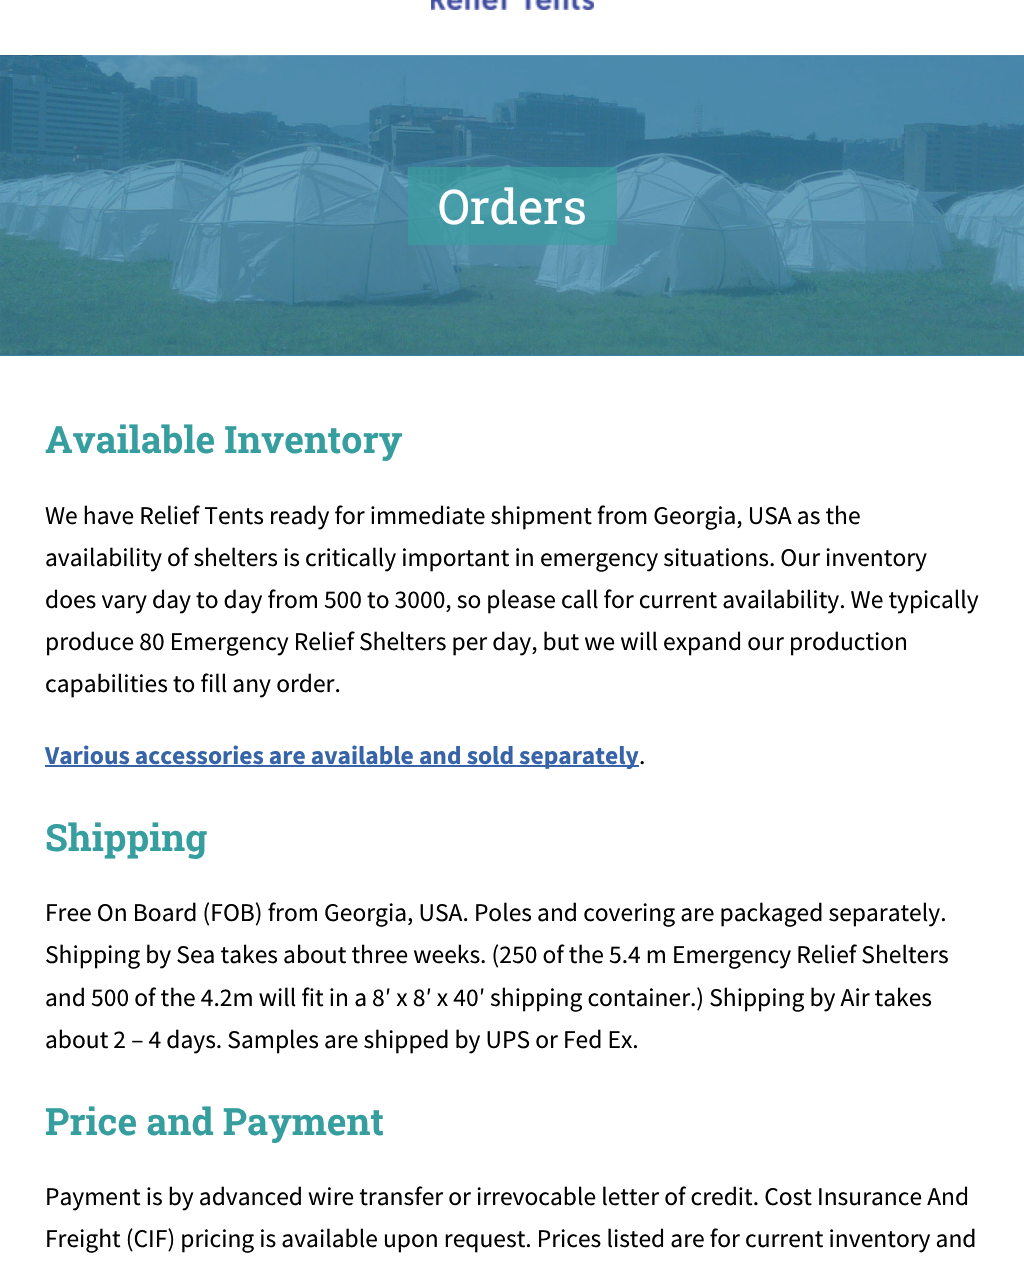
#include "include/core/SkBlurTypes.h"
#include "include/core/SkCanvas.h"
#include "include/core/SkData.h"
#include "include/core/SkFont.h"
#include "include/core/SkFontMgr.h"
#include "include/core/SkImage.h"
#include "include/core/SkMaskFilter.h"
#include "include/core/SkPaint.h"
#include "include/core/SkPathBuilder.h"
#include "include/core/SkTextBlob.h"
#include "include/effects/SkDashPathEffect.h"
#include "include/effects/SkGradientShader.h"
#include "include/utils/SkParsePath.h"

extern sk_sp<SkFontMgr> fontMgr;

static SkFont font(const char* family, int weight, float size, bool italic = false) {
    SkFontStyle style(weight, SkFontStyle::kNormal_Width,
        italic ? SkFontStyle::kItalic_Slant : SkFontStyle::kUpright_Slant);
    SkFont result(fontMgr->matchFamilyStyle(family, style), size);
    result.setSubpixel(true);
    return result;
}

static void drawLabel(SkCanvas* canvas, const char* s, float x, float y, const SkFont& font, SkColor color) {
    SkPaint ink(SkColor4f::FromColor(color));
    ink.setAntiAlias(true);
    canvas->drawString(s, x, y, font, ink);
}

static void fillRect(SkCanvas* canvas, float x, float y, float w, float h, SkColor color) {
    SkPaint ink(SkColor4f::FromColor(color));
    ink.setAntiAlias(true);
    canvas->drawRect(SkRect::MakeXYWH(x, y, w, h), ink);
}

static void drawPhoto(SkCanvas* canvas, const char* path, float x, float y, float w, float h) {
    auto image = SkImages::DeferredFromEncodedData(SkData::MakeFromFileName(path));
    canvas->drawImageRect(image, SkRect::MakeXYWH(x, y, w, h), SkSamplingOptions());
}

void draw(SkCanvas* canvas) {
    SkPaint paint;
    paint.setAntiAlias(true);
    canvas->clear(0xFFFFFFFF);
    drawPhoto(canvas, "assets/img1.png", 431, 0, 163, 10);
    fillRect(canvas, 0, 355, 1024, 1, 0xFF3782A4);
    drawPhoto(canvas, "assets/img2.png", 0, 55, 1024, 300);
    fillRect(canvas, 408, 167, 209, 78, 0xA6379E9F);
    SkFont font1 = font("Roboto Slab", 400, 48);
    drawLabel(canvas, "Orders", 438, 224, font1, 0xFFFFFFFF);
    SkFont font2 = font("Roboto Slab", 700, 37.5f);
    drawLabel(canvas, "Available Inventory", 45, 453, font2, 0xFF379E9F);
    SkFont font3 = font("Source Sans Pro", 400, 25.5f);
    drawLabel(canvas, "We have Relief Tents ready for immediate shipment from Georgia, USA as the", 45, 524, font3, 0xFF000000);
    drawLabel(canvas, "availability of shelters is critically important in emergency situations. Our inventory", 45, 566, font3, 0xFF000000);
    drawLabel(canvas, "does vary day to day from 500 to 3000, so please call for current availability. We typically", 45, 608, font3, 0xFF000000);
    drawLabel(canvas, "produce 80 Emergency Relief Shelters per day, but we will expand our production", 45, 650, font3, 0xFF000000);
    drawLabel(canvas, "capabilities to fill any order.", 45, 692, font3, 0xFF000000);
    fillRect(canvas, 45, 765, 594, 2, 0xFF3764A9);
    SkFont font4 = font("Source Sans Pro", 700, 25.5f);
    drawLabel(canvas, "Various accessories are available and sold separately", 45, 764, font4, 0xFF3764A9);
    drawLabel(canvas, ".", 639, 764, font3, 0xFF000000);
    drawLabel(canvas, "Shipping", 45, 851, font2, 0xFF379E9F);
    drawLabel(canvas, "Free On Board (FOB) from Georgia, USA. Poles and covering are packaged separately.", 45, 921, font3, 0xFF000000);
    drawLabel(canvas, "Shipping by Sea takes about three weeks. (250 of the 5.4 m Emergency Relief Shelters", 45, 963, font3, 0xFF000000);
    drawLabel(canvas, "and 500 of the 4.2m will fit in a 8′ x 8′ x 40′ shipping container.) Shipping by Air takes", 45, 1006, font3, 0xFF000000);
    drawLabel(canvas, "about 2 – 4 days. Samples are shipped by UPS or Fed Ex.", 45, 1048, font3, 0xFF000000);
    drawLabel(canvas, "Price and Payment", 45, 1135, font2, 0xFF379E9F);
    drawLabel(canvas, "Payment is by advanced wire transfer or irrevocable letter of credit. Cost Insurance And", 45, 1205, font3, 0xFF000000);
    drawLabel(canvas, "Freight (CIF) pricing is available upon request. Prices listed are for current inventory and", 45, 1247, font3, 0xFF000000);
}
